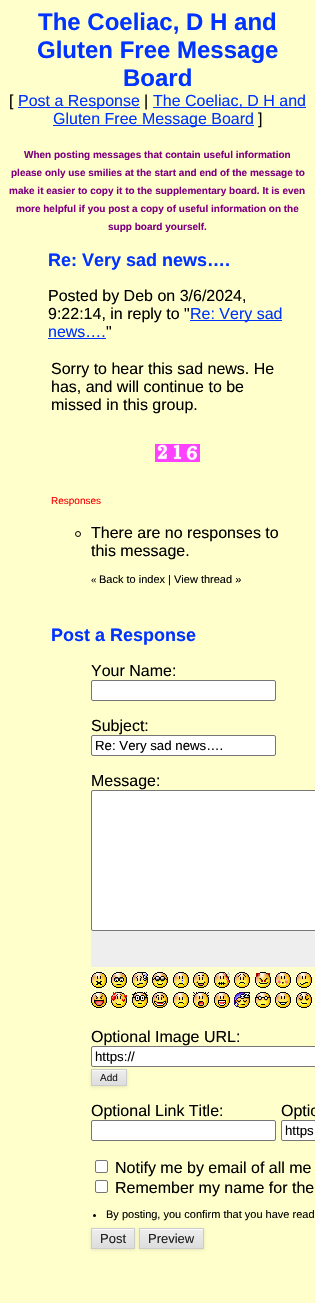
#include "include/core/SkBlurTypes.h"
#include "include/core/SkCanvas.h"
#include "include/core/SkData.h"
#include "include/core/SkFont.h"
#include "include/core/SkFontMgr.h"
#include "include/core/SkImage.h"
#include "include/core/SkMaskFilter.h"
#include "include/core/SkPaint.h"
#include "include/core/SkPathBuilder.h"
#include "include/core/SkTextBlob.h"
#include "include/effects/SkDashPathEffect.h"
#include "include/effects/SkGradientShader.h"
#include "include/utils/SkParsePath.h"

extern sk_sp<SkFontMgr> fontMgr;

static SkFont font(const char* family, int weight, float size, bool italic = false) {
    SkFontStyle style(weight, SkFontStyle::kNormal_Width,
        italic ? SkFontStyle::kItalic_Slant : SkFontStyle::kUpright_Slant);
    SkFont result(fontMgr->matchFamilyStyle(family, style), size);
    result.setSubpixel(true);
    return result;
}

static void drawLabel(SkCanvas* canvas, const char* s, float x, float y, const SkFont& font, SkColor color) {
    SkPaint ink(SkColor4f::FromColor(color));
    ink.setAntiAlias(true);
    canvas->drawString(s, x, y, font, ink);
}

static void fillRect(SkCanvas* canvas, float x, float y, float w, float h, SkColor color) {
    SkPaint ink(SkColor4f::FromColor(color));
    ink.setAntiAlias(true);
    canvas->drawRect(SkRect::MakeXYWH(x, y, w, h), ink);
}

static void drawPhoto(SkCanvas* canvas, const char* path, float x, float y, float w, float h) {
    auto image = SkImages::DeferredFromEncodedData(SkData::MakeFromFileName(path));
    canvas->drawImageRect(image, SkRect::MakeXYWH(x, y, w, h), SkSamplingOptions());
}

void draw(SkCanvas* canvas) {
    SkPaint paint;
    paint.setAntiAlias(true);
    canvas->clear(0xFFFFFFCC);
    SkFont font1 = font("Liberation Sans", 700, 24);
    drawLabel(canvas, "The Coeliac, D H and", 38, 30, font1, 0xFF0033FF);
    drawLabel(canvas, "Gluten Free Message", 37, 58, font1, 0xFF0033FF);
    drawLabel(canvas, "Board", 123, 86, font1, 0xFF0033FF);
    SkFont font2 = font("Liberation Sans", 400, 16);
    drawLabel(canvas, "[", 9, 106, font2, 0xFF000000);
    fillRect(canvas, 18, 107, 122, 1, 0xFF0033FF);
    drawLabel(canvas, "Post a Response", 18, 106, font2, 0xFF0033FF);
    drawLabel(canvas, "|", 144, 106, font2, 0xFF000000);
    fillRect(canvas, 153, 107, 153, 1, 0xFF0033FF);
    drawLabel(canvas, "The Coeliac, D H and", 153, 106, font2, 0xFF0033FF);
    fillRect(canvas, 53, 125, 201, 1, 0xFF0033FF);
    drawLabel(canvas, "Gluten Free Message Board", 53, 124, font2, 0xFF0033FF);
    drawLabel(canvas, "]", 258, 124, font2, 0xFF000000);
    SkFont font3 = font("Liberation Sans", 700, 10);
    drawLabel(canvas, "When posting messages that contain useful information", 24, 158, font3, 0xFF800080);
    drawLabel(canvas, "please only use smilies at the start and end of the message to", 11, 176, font3, 0xFF800080);
    drawLabel(canvas, "make it easier to copy it to the supplementary board. It is even", 9, 194, font3, 0xFF800080);
    drawLabel(canvas, "more helpful if you post a copy of useful information on the", 16, 212, font3, 0xFF800080);
    drawLabel(canvas, "supp board yourself.", 108, 230, font3, 0xFF800080);
    SkFont font4 = font("Liberation Sans", 700, 18);
    drawLabel(canvas, "Re: Very sad news….", 48, 266, font4, 0xFF0033FF);
    drawLabel(canvas, "Posted by Deb on 3/6/2024,", 48, 301, font2, 0xFF000000);
    drawLabel(canvas, "9:22:14, in reply to \"", 48, 319, font2, 0xFF000000);
    fillRect(canvas, 190, 320, 92, 1, 0xFF0033FF);
    drawLabel(canvas, "Re: Very sad", 190, 319, font2, 0xFF0033FF);
    drawLabel(canvas, "news….", 48, 337, font2, 0xFF0033FF);
    fillRect(canvas, 48, 338, 58, 1, 0xFF0033FF);
    drawLabel(canvas, "\"", 106, 337, font2, 0xFF000000);
    drawLabel(canvas, "Sorry to hear this sad news. He", 51, 374, font2, 0xFF000000);
    drawLabel(canvas, "has, and will continue to be", 51, 392, font2, 0xFF000000);
    drawLabel(canvas, "missed in this group.", 51, 410, font2, 0xFF000000);
    drawPhoto(canvas, "assets/img1.png", 155, 444, 15, 18);
    drawPhoto(canvas, "assets/img2.png", 170, 444, 15, 18);
    drawPhoto(canvas, "assets/img3.png", 185, 444, 15, 18);
    SkFont font5 = font("Liberation Sans", 400, 10);
    drawLabel(canvas, "Responses", 51, 504, font5, 0xFFFF0000);
    paint.setStroke(true);
    paint.setStrokeWidth(1);
    paint.setColor(0xFF000000);
    canvas->drawCircle(78, 534, 2.5f, paint);
    drawLabel(canvas, "There are no responses to", 91, 538, font2, 0xFF000000);
    drawLabel(canvas, "this message.", 91, 556, font2, 0xFF000000);
    drawLabel(canvas, "«", 91, 583, font5, 0xFF000000);
    SkFont font6 = font("Liberation Sans", 400, 11);
    drawLabel(canvas, "Back to index | View thread »", 99, 583, font6, 0xFF000000);
    drawLabel(canvas, "Post a Response", 51, 641, font4, 0xFF0033FF);
    drawLabel(canvas, "Your Name:", 91, 676, font2, 0xFF000000);
    paint.setStroke(false);
    paint.setColor(0xFFFFFFFF);
    canvas->drawRoundRect(SkRect::MakeXYWH(91.5f, 680.5f, 184, 20), 1.5f, 1.5f, paint);
    paint.setStroke(true);
    paint.setColor(0xFF767676);
    canvas->drawRoundRect(SkRect::MakeXYWH(91.5f, 680.5f, 184, 20), 1.5f, 1.5f, paint);
    drawLabel(canvas, "Subject:", 91, 731, font2, 0xFF000000);
    paint.setStroke(false);
    paint.setColor(0xFFFFFFFF);
    canvas->drawRoundRect(SkRect::MakeXYWH(91.5f, 735.5f, 184, 20), 1.5f, 1.5f, paint);
    paint.setStroke(true);
    paint.setColor(0xFF767676);
    canvas->drawRoundRect(SkRect::MakeXYWH(91.5f, 735.5f, 184, 20), 1.5f, 1.5f, paint);
    SkFont font7 = font("Liberation Sans", 400, 13.25f);
    drawLabel(canvas, "Re: Very sad news….", 95, 750, font7, 0xFF000000);
    drawLabel(canvas, "Message:", 91, 786, font2, 0xFF000000);
    fillRect(canvas, 91, 790, 224, 177, 0xFFEEEEEE);
    paint.setStroke(false);
    paint.setColor(0xFFFFFFFF);
    canvas->drawRoundRect(SkRect::MakeXYWH(91.5f, 790.5f, 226, 140), 1.5f, 1.5f, paint);
    paint.setStroke(true);
    paint.setColor(0xFF767676);
    canvas->drawRoundRect(SkRect::MakeXYWH(91.5f, 790.5f, 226, 140), 1.5f, 1.5f, paint);
    drawPhoto(canvas, "assets/img4.png", 91, 972, 16, 16);
    drawPhoto(canvas, "assets/img5.png", 111, 972, 16, 16);
    drawPhoto(canvas, "assets/img6.png", 132, 972, 16, 16);
    drawPhoto(canvas, "assets/img7.png", 152, 972, 16, 16);
    drawPhoto(canvas, "assets/img8.png", 173, 972, 16, 16);
    drawPhoto(canvas, "assets/img9.png", 193, 972, 16, 16);
    drawPhoto(canvas, "assets/img10.png", 214, 972, 16, 16);
    drawPhoto(canvas, "assets/img11.png", 234, 972, 16, 16);
    drawPhoto(canvas, "assets/img12.png", 255, 972, 16, 16);
    drawPhoto(canvas, "assets/img13.png", 275, 972, 16, 16);
    drawPhoto(canvas, "assets/img14.png", 296, 972, 16, 16);
    drawPhoto(canvas, "assets/img15.png", 91, 992, 16, 16);
    drawPhoto(canvas, "assets/img16.png", 111, 992, 16, 16);
    drawPhoto(canvas, "assets/img17.png", 132, 992, 16, 16);
    drawPhoto(canvas, "assets/img18.png", 152, 992, 16, 16);
    drawPhoto(canvas, "assets/img19.png", 173, 992, 16, 16);
    drawPhoto(canvas, "assets/img20.png", 193, 992, 16, 16);
    drawPhoto(canvas, "assets/img21.png", 214, 992, 16, 16);
    drawPhoto(canvas, "assets/img22.png", 234, 992, 16, 16);
    drawPhoto(canvas, "assets/img23.png", 255, 992, 16, 16);
    drawPhoto(canvas, "assets/img24.png", 275, 992, 16, 16);
    drawPhoto(canvas, "assets/img25.png", 296, 992, 16, 16);
    drawLabel(canvas, "Optional Image URL:", 91, 1042, font2, 0xFF000000);
    paint.setStroke(false);
    paint.setColor(0xFFFFFFFF);
    canvas->drawRoundRect(SkRect::MakeXYWH(91.5f, 1046.5f, 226, 20), 1.5f, 1.5f, paint);
    paint.setStroke(true);
    paint.setColor(0xFF767676);
    canvas->drawRoundRect(SkRect::MakeXYWH(91.5f, 1046.5f, 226, 20), 1.5f, 1.5f, paint);
    drawLabel(canvas, "https://", 95, 1061, font7, 0xFF000000);
    paint.setStroke(false);
    paint.setColor(0x1A000000);
    paint.setMaskFilter(SkMaskFilter::MakeBlur(kNormal_SkBlurStyle, 1.5f));
    canvas->drawRect(SkRect::MakeXYWH(91, 1070, 36, 17), paint);
    paint.setMaskFilter(nullptr);
    {
        const SkColor colors[] = {0xFFEEEEEE, 0xFFDDDDDD};
        const float stops[] = {0, 1};
        const SkPoint ends[] = {{109, 1070}, {109, 1085}};
        paint.setShader(SkGradientShader::MakeLinear(ends, colors, stops, 2, SkTileMode::kClamp));
        paint.setAlpha(255);
    }
    canvas->drawRect(SkRect::MakeXYWH(92, 1071, 34, 14), paint);
    fillRect(canvas, 92, 1070, 34, 1, 0xFFFAFAFA);
    paint.setStroke(true);
    paint.setShader(nullptr);
    paint.setColor(0xFFCCCCCC);
    canvas->drawRect(SkRect::MakeXYWH(91.5f, 1069.5f, 35, 16), paint);
    drawLabel(canvas, "Add", 100, 1081, font5, 0xFF202020);
    drawLabel(canvas, "Optional Link Title:", 91, 1116, font2, 0xFF000000);
    paint.setStroke(false);
    paint.setColor(0xFFFFFFFF);
    canvas->drawRoundRect(SkRect::MakeXYWH(91.5f, 1120.5f, 184, 20), 1.5f, 1.5f, paint);
    paint.setStroke(true);
    paint.setColor(0xFF767676);
    canvas->drawRoundRect(SkRect::MakeXYWH(91.5f, 1120.5f, 184, 20), 1.5f, 1.5f, paint);
    drawLabel(canvas, "Optio", 281, 1116, font2, 0xFF000000);
    paint.setStroke(false);
    paint.setColor(0xFFFFFFFF);
    canvas->drawRoundRect(SkRect::MakeXYWH(281.5f, 1120.5f, 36, 20), 1.5f, 1.5f, paint);
    paint.setStroke(true);
    paint.setColor(0xFF767676);
    canvas->drawRoundRect(SkRect::MakeXYWH(281.5f, 1120.5f, 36, 20), 1.5f, 1.5f, paint);
    drawLabel(canvas, "https", 285, 1135, font7, 0xFF000000);
    paint.setStroke(false);
    paint.setColor(0xFFFFFFFF);
    canvas->drawRoundRect(SkRect::MakeXYWH(95.5f, 1160.5f, 12, 12), 1.5f, 1.5f, paint);
    paint.setStroke(true);
    paint.setColor(0xFF767676);
    canvas->drawRoundRect(SkRect::MakeXYWH(95.5f, 1160.5f, 12, 12), 1.5f, 1.5f, paint);
    drawLabel(canvas, "Notify me by email of all me", 115, 1173, font2, 0xFF000000);
    paint.setStroke(false);
    paint.setColor(0xFFFFFFFF);
    canvas->drawRoundRect(SkRect::MakeXYWH(95.5f, 1180.5f, 12, 12), 1.5f, 1.5f, paint);
    paint.setStroke(true);
    paint.setColor(0xFF767676);
    canvas->drawRoundRect(SkRect::MakeXYWH(95.5f, 1180.5f, 12, 12), 1.5f, 1.5f, paint);
    drawLabel(canvas, "Remember my name for the", 115, 1193, font2, 0xFF000000);
    paint.setStroke(false);
    paint.setColor(0xFF000000);
    canvas->drawCircle(94.5f, 1215.5f, 1.5f, paint);
    drawLabel(canvas, "By posting, you confirm that you have read", 106, 1218, font6, 0xFF000000);
    paint.setColor(0x1A000000);
    paint.setMaskFilter(SkMaskFilter::MakeBlur(kNormal_SkBlurStyle, 1.5f));
    canvas->drawRect(SkRect::MakeXYWH(91, 1229, 44, 21), paint);
    paint.setMaskFilter(nullptr);
    {
        const SkColor colors[] = {0xFFEEEEEE, 0xFFDDDDDD};
        const float stops[] = {0, 1};
        const SkPoint ends[] = {{113, 1229}, {113, 1248}};
        paint.setShader(SkGradientShader::MakeLinear(ends, colors, stops, 2, SkTileMode::kClamp));
        paint.setAlpha(255);
    }
    canvas->drawRect(SkRect::MakeXYWH(92, 1230, 42, 18), paint);
    fillRect(canvas, 92, 1229, 42, 1, 0xFFFAFAFA);
    paint.setStroke(true);
    paint.setShader(nullptr);
    paint.setColor(0xFFCCCCCC);
    canvas->drawRect(SkRect::MakeXYWH(91.5f, 1228.5f, 43, 20), paint);
    SkFont font8 = font("Liberation Sans", 400, 13);
    drawLabel(canvas, "Post", 100, 1243, font8, 0xFF202020);
    paint.setStroke(false);
    paint.setColor(0x1A000000);
    paint.setMaskFilter(SkMaskFilter::MakeBlur(kNormal_SkBlurStyle, 1.5f));
    canvas->drawRect(SkRect::MakeXYWH(139, 1229, 65, 21), paint);
    paint.setMaskFilter(nullptr);
    {
        const SkColor colors[] = {0xFFEEEEEE, 0xFFDDDDDD};
        const float stops[] = {0, 1};
        const SkPoint ends[] = {{172, 1229}, {172, 1248}};
        paint.setShader(SkGradientShader::MakeLinear(ends, colors, stops, 2, SkTileMode::kClamp));
        paint.setAlpha(255);
    }
    canvas->drawRect(SkRect::MakeXYWH(140, 1230, 63, 18), paint);
    fillRect(canvas, 140, 1229, 63, 1, 0xFFFAFAFA);
    paint.setStroke(true);
    paint.setShader(nullptr);
    paint.setColor(0xFFCCCCCC);
    canvas->drawRect(SkRect::MakeXYWH(139.5f, 1228.5f, 64, 20), paint);
    drawLabel(canvas, "Preview", 148, 1243, font8, 0xFF202020);
}
